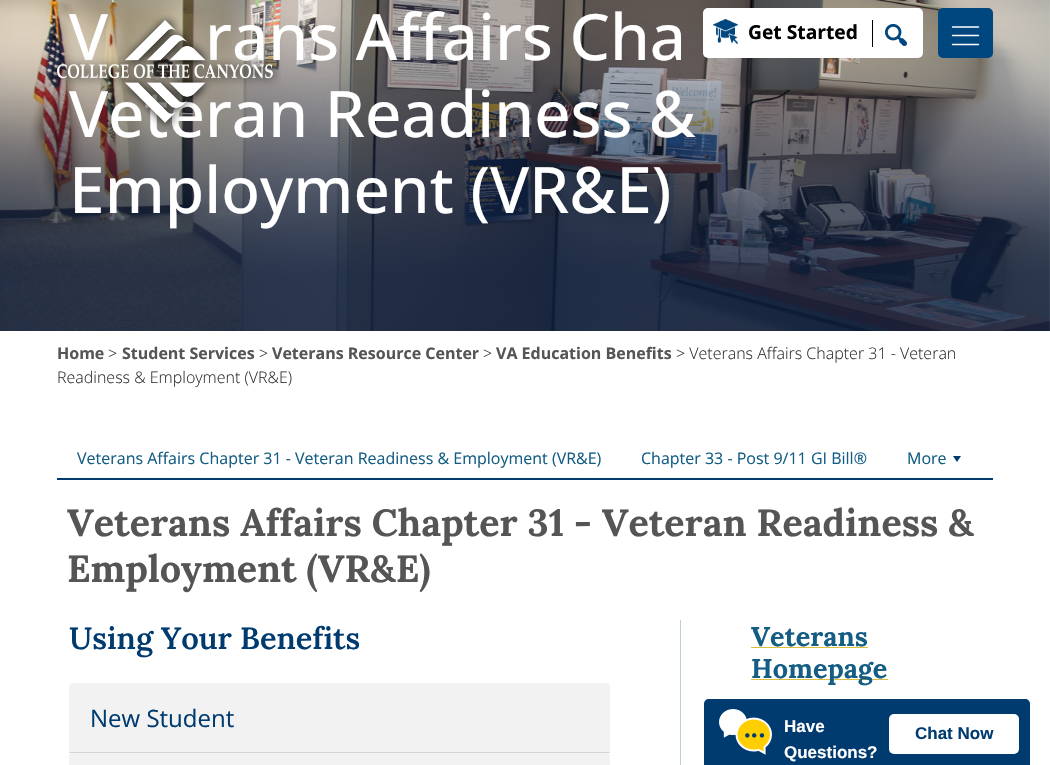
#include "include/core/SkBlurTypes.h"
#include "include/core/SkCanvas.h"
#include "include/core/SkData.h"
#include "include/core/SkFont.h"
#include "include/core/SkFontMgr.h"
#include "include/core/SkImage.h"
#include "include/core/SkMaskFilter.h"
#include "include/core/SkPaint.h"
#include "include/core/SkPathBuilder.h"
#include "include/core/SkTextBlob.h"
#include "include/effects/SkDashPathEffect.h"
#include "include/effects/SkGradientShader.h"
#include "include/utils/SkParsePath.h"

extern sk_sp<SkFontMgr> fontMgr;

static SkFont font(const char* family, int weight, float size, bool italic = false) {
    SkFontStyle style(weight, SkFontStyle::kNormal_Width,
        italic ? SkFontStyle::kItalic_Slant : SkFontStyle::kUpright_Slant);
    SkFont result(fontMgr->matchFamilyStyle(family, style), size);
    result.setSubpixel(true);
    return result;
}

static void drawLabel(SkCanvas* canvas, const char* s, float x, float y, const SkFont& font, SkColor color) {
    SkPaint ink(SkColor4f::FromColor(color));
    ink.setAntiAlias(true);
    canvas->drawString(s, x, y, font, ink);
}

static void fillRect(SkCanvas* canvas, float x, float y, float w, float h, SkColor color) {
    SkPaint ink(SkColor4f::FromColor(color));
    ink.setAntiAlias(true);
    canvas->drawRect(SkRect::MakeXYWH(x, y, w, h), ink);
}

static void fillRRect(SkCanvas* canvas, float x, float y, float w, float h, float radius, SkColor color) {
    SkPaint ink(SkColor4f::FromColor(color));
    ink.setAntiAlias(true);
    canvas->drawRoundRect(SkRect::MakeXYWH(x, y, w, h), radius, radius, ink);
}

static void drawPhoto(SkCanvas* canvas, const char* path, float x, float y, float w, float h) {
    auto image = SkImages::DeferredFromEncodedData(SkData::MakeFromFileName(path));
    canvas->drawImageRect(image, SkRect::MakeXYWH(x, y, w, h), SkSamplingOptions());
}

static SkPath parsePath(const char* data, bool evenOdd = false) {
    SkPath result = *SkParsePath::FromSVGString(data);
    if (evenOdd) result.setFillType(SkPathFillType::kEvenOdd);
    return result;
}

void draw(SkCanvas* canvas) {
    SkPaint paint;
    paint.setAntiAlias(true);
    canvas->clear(0xFFFFFFFF);
    drawPhoto(canvas, "assets/img1.png", 0, 0, 1050, 331);
    SkFont font1 = font("Open Sans", 500, 64);
    drawLabel(canvas, "V", 69, 60, font1, 0xFFFFFFFF);
    drawLabel(canvas, "rans Affairs Cha", 205, 60, font1, 0xFFFFFFFF);
    drawLabel(canvas, "Veteran Readiness &", 69, 137, font1, 0xFFFFFFFF);
    drawLabel(canvas, "Employment (VR&E)", 69, 213, font1, 0xFFFFFFFF);
    SkFont font2 = font("Open Sans", 700, 16);
    drawLabel(canvas, "Home", 57, 359, font2, 0xFF555555);
    SkFont font3 = font("Open Sans", 300, 16);
    drawLabel(canvas, ">", 108, 359, font3, 0xFF333333);
    drawLabel(canvas, "Student Services", 122, 359, font2, 0xFF555555);
    drawLabel(canvas, ">", 259, 359, font3, 0xFF333333);
    drawLabel(canvas, "Veterans Resource Center", 272, 359, font2, 0xFF555555);
    drawLabel(canvas, ">", 483, 359, font3, 0xFF333333);
    drawLabel(canvas, "VA Education Benefits", 496, 359, font2, 0xFF555555);
    drawLabel(canvas, "> Veterans Affairs Chapter 31 - Veteran", 676, 359, font3, 0xFF333333);
    drawLabel(canvas, "Readiness & Employment (VR&E)", 57, 383, font3, 0xFF333333);
    fillRect(canvas, 57, 478, 936, 2, 0xFF003B70);
    SkFont font4 = font("Open Sans", 400, 16);
    drawLabel(canvas, "Veterans Affairs Chapter 31 - Veteran Readiness & Employment (VR&E)", 77, 464, font4, 0xFF145D85);
    drawLabel(canvas, "Chapter 33 - Post 9/11 GI Bill®", 641, 464, font4, 0xFF145D85);
    drawLabel(canvas, "More", 907, 464, font4, 0xFF145D85);
    paint.setColor(0xFF003B70);
    canvas->drawPath(parsePath("M953 456H961L957 462Z"), paint);
    SkFont font5 = font("Lora", 700, 37.75f);
    drawLabel(canvas, "Veterans Affairs Chapter 31 - Veteran Readiness &", 67, 536, font5, 0xFF555555);
    drawLabel(canvas, "Employment (VR&E)", 67, 582, font5, 0xFF555555);
    fillRect(canvas, 680, 620, 1, 145, 0xFFBFCEDB);
    SkFont font6 = font("Lora", 600, 30.75f);
    drawLabel(canvas, "Using Your Benefits", 69, 649, font6, 0xFF003B70);
    paint.setColor(0xFFF2F2F2);
    canvas->drawPath(parsePath("M72 683H607C608.5 683 610 684.5 610 686V753H69V686C69 684.5 70.5 683 72 683Z"), paint);
    paint.setColor(0xFFD4D4D4);
    canvas->drawPath(parsePath("M610 753L609 752H70L69 753Z"), paint);
    SkFont font7 = font("Open Sans", 400, 24);
    drawLabel(canvas, "New Student", 90, 727, font7, 0xFF003B70);
    paint.setColor(0xFFF2F2F2);
    canvas->drawPath(parsePath("M72 753H607C608.5 753 610 754.5 610 756V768H69V756C69 754.5 70.5 753 72 753Z"), paint);
    SkFont font8 = font("Lora", 700, 27);
    drawLabel(canvas, "Veterans", 751, 646, font8, 0xFF145D85);
    fillRect(canvas, 751, 647, 117, 1, 0xFFDDBE3D);
    fillRect(canvas, 751, 679, 137, 1, 0xFFDDBE3D);
    drawLabel(canvas, "Homepage", 751, 678, font8, 0xFF145D85);
    drawPhoto(canvas, "assets/img2.png", 50, 15, 231, 115);
    fillRRect(canvas, 703, 8, 220, 50, 5, 0xFFFFFFFF);
    drawPhoto(canvas, "assets/img3.png", 713, 19, 25, 25);
    SkFont font9 = font("Open Sans", 700, 19.25f);
    drawLabel(canvas, "Get Started", 748, 39, font9, 0xFF000000);
    fillRect(canvas, 872, 20, 1, 27, 0xFF000000);
    drawPhoto(canvas, "assets/img4.png", 885, 24, 22, 22);
    fillRRect(canvas, 938, 8, 55, 50, 5, 0xFF00467F);
    paint.setStroke(true);
    paint.setStrokeWidth(1.4f);
    paint.setStrokeCap(SkPaint::kRound_Cap);
    paint.setStrokeJoin(SkPaint::kRound_Join);
    paint.setColor(0xFFFFFFFF);
    canvas->drawPath(parsePath("M952.5 27H978.5M952.5 35.5H978.5M952.5 44.5H978.5"), paint);
    paint.setStroke(false);
    paint.setColor(0xFF003B70);
    canvas->drawPath(parsePath("M709 699H1025C1028 699 1030 701 1030 704V765H704V704C704 701 706 699 709 699Z"), paint);
    drawPhoto(canvas, "assets/img5.png", 719, 709, 53, 46);
    SkFont font10 = font("Liberation Sans", 700, 17);
    drawLabel(canvas, "Have", 784, 732, font10, 0xFFFFFFFF);
    drawLabel(canvas, "Questions?", 784, 758, font10, 0xFFFFFFFF);
    fillRRect(canvas, 889, 714, 130, 40, 5, 0xFFFFFFFF);
    drawLabel(canvas, "Chat Now", 915, 739, font10, 0xFF003B70);
}
